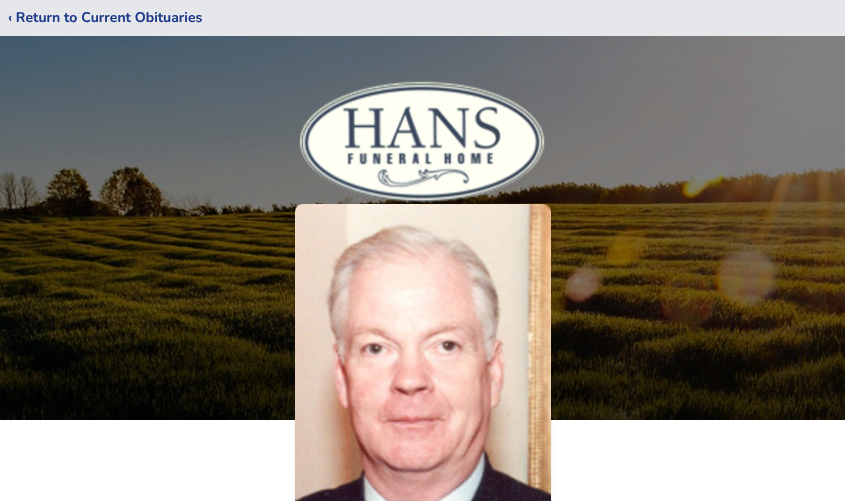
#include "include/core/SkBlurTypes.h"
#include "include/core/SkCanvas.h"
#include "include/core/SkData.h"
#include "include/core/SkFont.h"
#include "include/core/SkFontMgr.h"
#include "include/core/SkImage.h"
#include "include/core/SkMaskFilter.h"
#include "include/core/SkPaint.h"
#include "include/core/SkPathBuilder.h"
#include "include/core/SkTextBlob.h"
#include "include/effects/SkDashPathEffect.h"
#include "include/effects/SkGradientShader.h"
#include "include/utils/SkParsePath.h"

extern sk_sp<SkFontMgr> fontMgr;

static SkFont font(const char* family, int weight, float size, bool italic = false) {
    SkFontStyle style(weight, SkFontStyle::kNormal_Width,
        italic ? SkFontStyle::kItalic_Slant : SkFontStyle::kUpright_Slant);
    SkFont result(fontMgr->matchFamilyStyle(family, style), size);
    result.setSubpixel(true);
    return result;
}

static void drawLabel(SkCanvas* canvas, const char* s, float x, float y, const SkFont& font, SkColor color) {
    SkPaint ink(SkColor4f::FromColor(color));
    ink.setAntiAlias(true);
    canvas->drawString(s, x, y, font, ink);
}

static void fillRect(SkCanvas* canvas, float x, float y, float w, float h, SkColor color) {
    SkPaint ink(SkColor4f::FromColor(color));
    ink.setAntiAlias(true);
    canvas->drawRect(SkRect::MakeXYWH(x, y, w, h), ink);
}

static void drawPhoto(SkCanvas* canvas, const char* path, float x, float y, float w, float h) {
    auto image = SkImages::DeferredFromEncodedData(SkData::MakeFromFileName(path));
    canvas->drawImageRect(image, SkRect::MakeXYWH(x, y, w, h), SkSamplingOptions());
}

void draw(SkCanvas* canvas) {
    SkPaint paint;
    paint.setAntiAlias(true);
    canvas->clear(0xFFFFFFFF);
    fillRect(canvas, 0, 0, 845, 36, 0xFFE5E7EB);
    SkFont font1 = font("Nunito", 700, 14);
    drawLabel(canvas, "‹ Return to Current Obituaries", 8, 22, font1, 0xFF1E3A8A);
    drawPhoto(canvas, "assets/img1.png", 0, 36, 845, 384);
    drawPhoto(canvas, "assets/img2.png", 299, 81, 246, 121);
    paint.setColor(0x1A000000);
    paint.setMaskFilter(SkMaskFilter::MakeBlur(kNormal_SkBlurStyle, 1.5f));
    canvas->drawRoundRect(SkRect::MakeXYWH(295, 205, 256, 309), 8, 8, paint);
    paint.setMaskFilter(nullptr);
    drawPhoto(canvas, "assets/img3.png", 295, 204, 256, 297);
}
